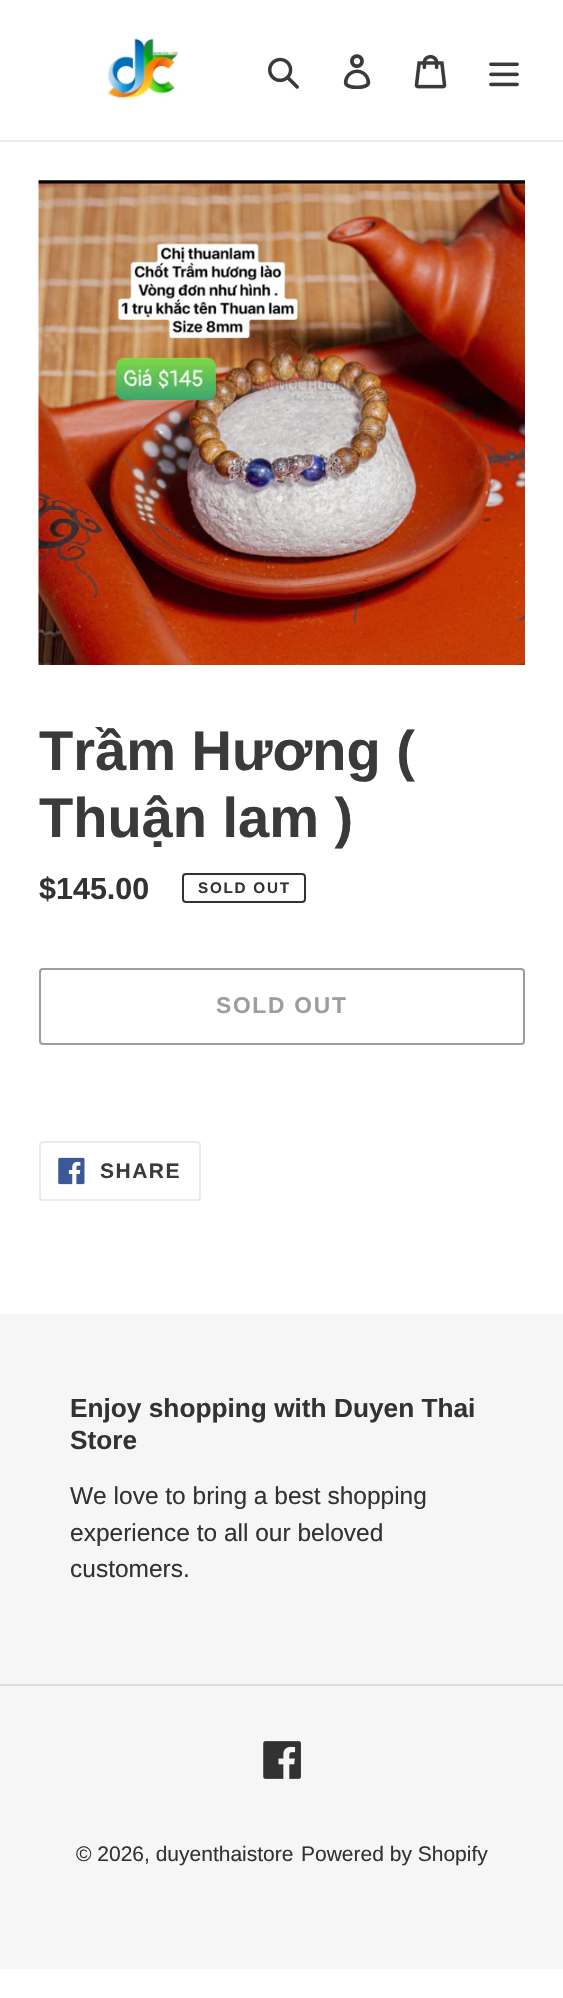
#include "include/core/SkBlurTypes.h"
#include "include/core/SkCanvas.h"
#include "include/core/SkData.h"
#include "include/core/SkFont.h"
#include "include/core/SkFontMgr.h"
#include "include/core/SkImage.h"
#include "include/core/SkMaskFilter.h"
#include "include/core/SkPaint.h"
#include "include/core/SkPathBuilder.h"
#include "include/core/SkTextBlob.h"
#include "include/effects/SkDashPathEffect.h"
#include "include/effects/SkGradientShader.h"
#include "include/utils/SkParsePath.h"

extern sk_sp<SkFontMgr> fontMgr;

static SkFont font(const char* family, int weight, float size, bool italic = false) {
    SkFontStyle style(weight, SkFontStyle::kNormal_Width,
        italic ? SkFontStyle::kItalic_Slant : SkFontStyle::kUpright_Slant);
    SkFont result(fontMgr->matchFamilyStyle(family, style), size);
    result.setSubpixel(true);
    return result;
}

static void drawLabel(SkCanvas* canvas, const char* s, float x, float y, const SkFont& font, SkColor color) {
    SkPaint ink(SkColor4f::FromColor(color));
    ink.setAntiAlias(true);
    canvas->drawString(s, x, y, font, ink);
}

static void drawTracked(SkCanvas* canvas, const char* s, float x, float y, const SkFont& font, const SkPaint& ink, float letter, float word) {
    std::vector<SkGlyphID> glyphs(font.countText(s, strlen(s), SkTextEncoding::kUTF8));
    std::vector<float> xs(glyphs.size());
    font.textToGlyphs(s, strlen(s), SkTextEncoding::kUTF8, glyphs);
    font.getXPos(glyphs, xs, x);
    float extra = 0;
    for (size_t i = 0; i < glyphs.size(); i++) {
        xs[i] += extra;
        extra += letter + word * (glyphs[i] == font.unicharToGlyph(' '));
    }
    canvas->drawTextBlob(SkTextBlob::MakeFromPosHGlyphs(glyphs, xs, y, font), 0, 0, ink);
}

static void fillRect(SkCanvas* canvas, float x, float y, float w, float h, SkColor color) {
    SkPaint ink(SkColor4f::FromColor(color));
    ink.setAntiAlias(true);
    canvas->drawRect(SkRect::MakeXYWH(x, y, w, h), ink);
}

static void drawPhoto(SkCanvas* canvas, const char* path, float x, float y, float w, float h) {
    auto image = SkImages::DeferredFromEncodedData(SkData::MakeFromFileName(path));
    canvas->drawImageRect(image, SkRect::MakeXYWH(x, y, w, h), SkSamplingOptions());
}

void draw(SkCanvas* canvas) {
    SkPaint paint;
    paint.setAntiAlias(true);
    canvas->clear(0xFFFFFFFF);
    fillRect(canvas, 0, 140, 563, 2, 0xFFEBEBEB);
    drawPhoto(canvas, "assets/img1.png", 107, 38, 72, 62);
    drawPhoto(canvas, "assets/img2.png", 268, 57, 31, 32);
    drawPhoto(canvas, "assets/img3.png", 343, 54, 28, 35);
    drawPhoto(canvas, "assets/img4.png", 414, 54, 33, 35);
    drawPhoto(canvas, "assets/img5.png", 489, 62, 30, 25);
    drawPhoto(canvas, "assets/img6.png", 38, 180, 487, 485);
    SkFont font1 = font("Liberation Sans", 700, 56);
    drawLabel(canvas, "Trầm Hương (", 39, 770, font1, 0xFF3A3A3A);
    drawLabel(canvas, "Thuận lam )", 39, 837, font1, 0xFF3A3A3A);
    SkFont font2 = font("Liberation Sans", 700, 30.5f);
    drawLabel(canvas, "$145.00", 39, 899, font2, 0xFF333232);
    paint.setStroke(true);
    paint.setStrokeWidth(2);
    paint.setColor(0xFF333232);
    canvas->drawRoundRect(SkRect::MakeXYWH(183, 874, 122, 28), 3, 3, paint);
    SkFont font3 = font("Liberation Sans", 700, 15.25f);
    paint.setStroke(false);
    drawTracked(canvas, "SOLD OUT", 198, 893, font3, paint, 1.75f, 0);
    paint.setStroke(true);
    paint.setColor(0xFF9D9D9D);
    canvas->drawRoundRect(SkRect::MakeXYWH(40, 969, 484, 75), 3, 3, paint);
    SkFont font4 = font("Liberation Sans", 700, 22.75f);
    paint.setStroke(false);
    drawTracked(canvas, "SOLD OUT", 216, 1013, font4, paint, 1.75f, 0);
    paint.setStroke(true);
    paint.setColor(0xFFEBEBEB);
    canvas->drawRoundRect(SkRect::MakeXYWH(40, 1142, 160, 58), 3, 3, paint);
    drawPhoto(canvas, "assets/img7.png", 58, 1157, 27, 28);
    SkFont font5 = font("Liberation Sans", 700, 21);
    paint.setStroke(false);
    paint.setColor(0xFF3A3A3A);
    drawTracked(canvas, "SHARE", 100, 1178, font5, paint, 1.5f, 0);
    fillRect(canvas, 0, 1314, 563, 655, 0xFFF6F6F6);
    SkFont font6 = font("Liberation Sans", 700, 26.25f);
    drawLabel(canvas, "Enjoy shopping with Duyen Thai", 70, 1417, font6, 0xFF333232);
    drawLabel(canvas, "Store", 70, 1449, font6, 0xFF333232);
    SkFont font7 = font("Liberation Sans", 400, 24.5f);
    drawLabel(canvas, "We love to bring a best shopping", 70, 1504, font7, 0xFF333232);
    drawLabel(canvas, "experience to all our beloved", 70, 1541, font7, 0xFF333232);
    drawLabel(canvas, "customers.", 70, 1577, font7, 0xFF333232);
    fillRect(canvas, 0, 1684, 563, 2, 0xFFDDDDDD);
    drawPhoto(canvas, "assets/img8.png", 263, 1741, 38, 38);
    SkFont font8 = font("Liberation Sans", 400, 21);
    drawLabel(canvas, "© 2026, duyenthaistore", 76, 1861, font8, 0xFF333232);
    drawLabel(canvas, "Powered by Shopify", 301, 1861, font8, 0xFF333232);
}
